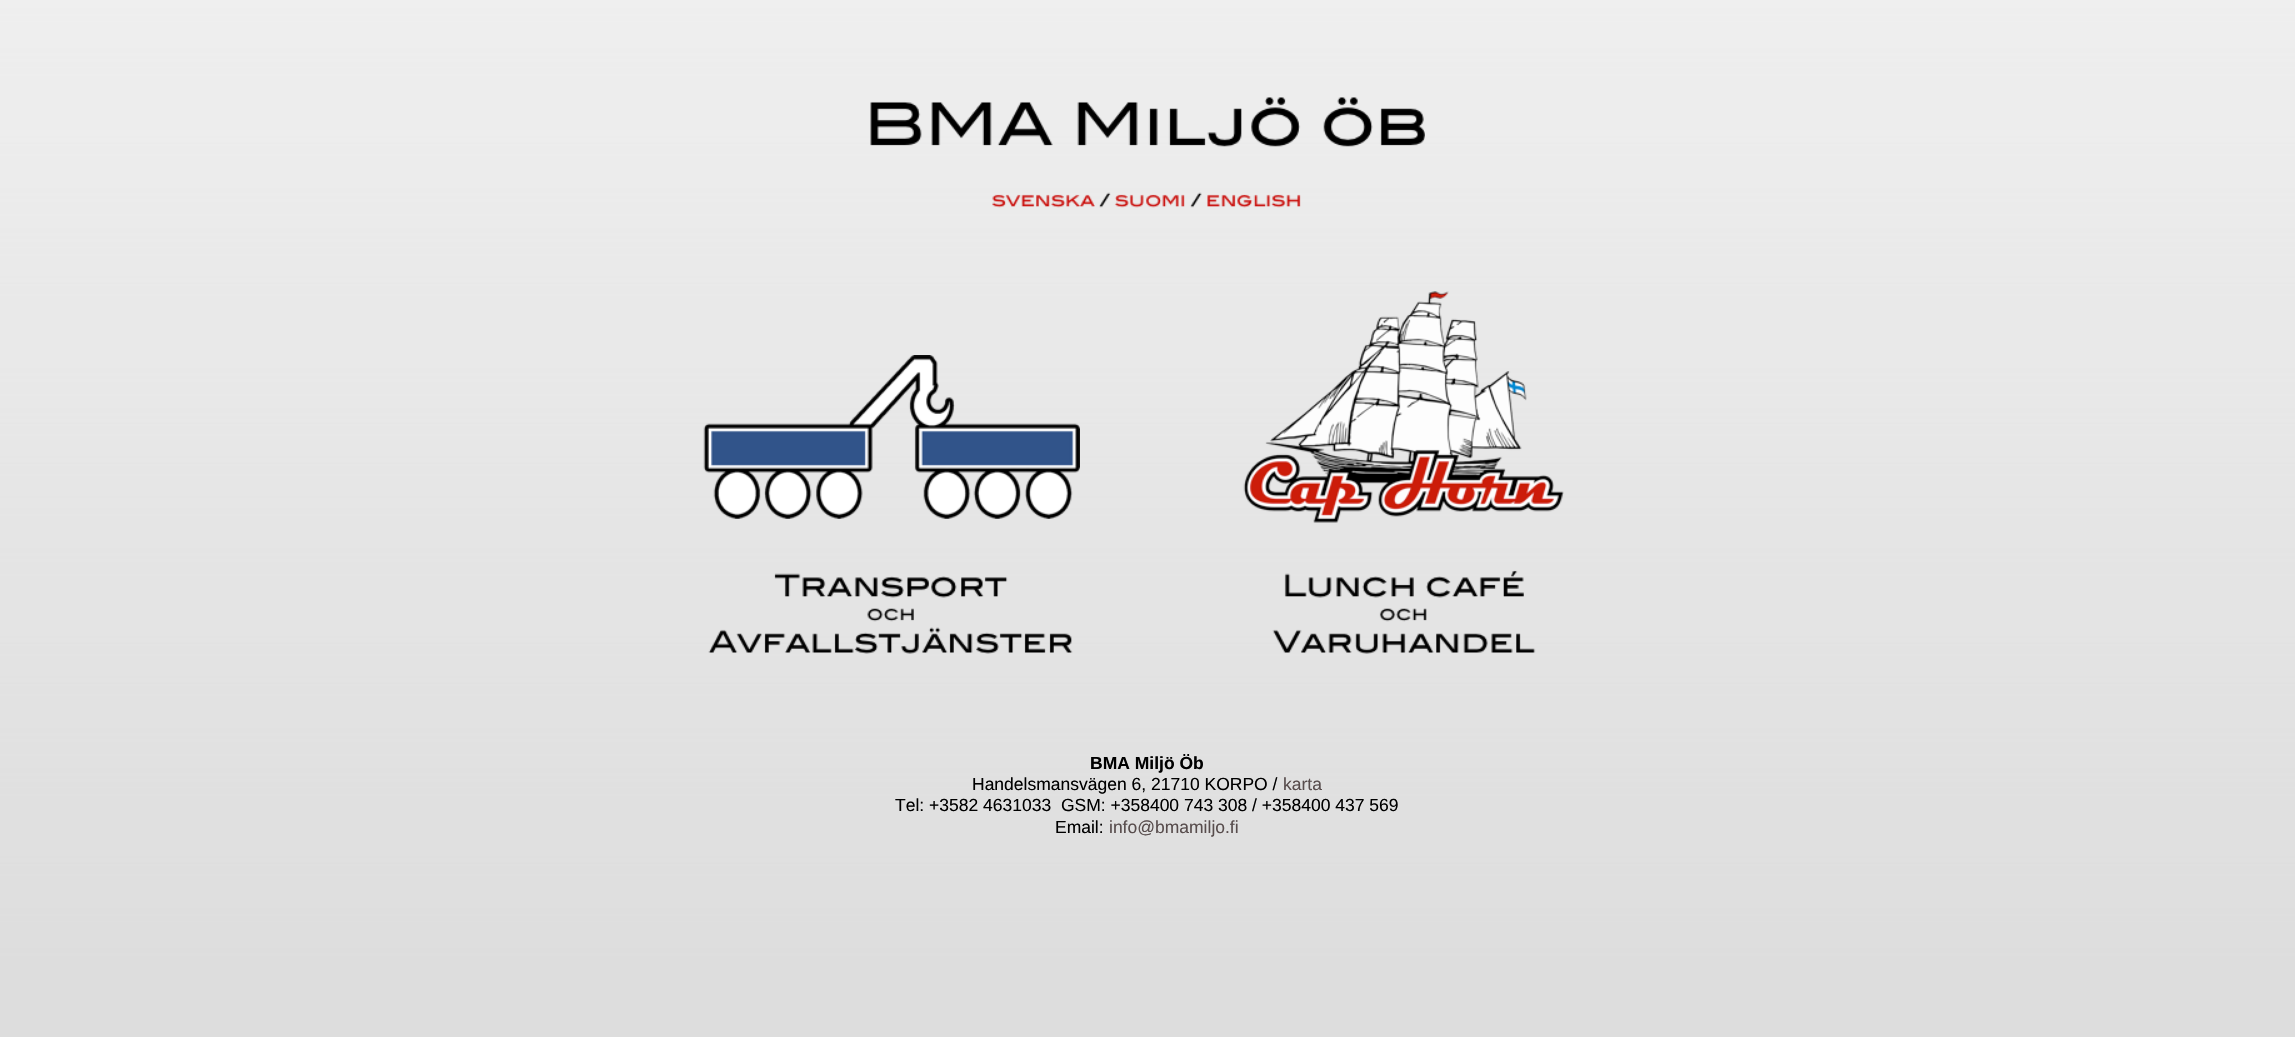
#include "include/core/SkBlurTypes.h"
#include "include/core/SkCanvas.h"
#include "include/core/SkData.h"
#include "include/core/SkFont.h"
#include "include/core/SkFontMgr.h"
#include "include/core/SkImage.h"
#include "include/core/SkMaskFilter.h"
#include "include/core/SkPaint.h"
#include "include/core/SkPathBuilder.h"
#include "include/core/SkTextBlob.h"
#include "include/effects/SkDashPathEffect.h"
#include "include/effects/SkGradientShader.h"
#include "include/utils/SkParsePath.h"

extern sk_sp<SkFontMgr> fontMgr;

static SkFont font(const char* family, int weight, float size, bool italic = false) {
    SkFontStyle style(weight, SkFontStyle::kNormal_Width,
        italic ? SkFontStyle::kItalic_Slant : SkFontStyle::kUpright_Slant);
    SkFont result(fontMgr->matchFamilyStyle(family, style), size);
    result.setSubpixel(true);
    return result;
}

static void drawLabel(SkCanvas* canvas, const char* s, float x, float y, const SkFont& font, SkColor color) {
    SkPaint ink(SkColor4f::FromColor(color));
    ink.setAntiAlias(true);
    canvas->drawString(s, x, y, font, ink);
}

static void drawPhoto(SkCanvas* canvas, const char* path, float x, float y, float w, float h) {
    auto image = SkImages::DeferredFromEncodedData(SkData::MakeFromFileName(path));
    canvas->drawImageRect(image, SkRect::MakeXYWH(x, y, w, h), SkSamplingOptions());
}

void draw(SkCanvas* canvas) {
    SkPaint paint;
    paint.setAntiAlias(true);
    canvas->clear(0xFFFFFFFF);
    drawPhoto(canvas, "assets/img1.png", 0, 0, 2295, 1037);
    drawPhoto(canvas, "assets/img2.png", 870, 97, 555, 50);
    drawPhoto(canvas, "assets/img3.png", 992, 194, 103, 14);
    drawPhoto(canvas, "assets/img5.png", 1114, 194, 71, 14);
    drawPhoto(canvas, "assets/img4.png", 1099, 192, 103, 16);
    drawPhoto(canvas, "assets/img6.png", 1207, 194, 94, 14);
    drawPhoto(canvas, "assets/img7.png", 703, 355, 377, 164);
    drawPhoto(canvas, "assets/img8.png", 1243, 291, 321, 232);
    drawPhoto(canvas, "assets/img9.png", 708, 573, 365, 81);
    drawPhoto(canvas, "assets/img10.png", 1272, 570, 264, 84);
    SkFont font1 = font("Liberation Sans", 700, 17.5f);
    drawLabel(canvas, "BMA Miljö Öb", 1090, 769, font1, 0xFF000000);
    SkFont font2 = font("Liberation Sans", 400, 17.5f);
    drawLabel(canvas, "Handelsmansvägen 6, 21710 KORPO /", 972, 790, font2, 0xFF000000);
    drawLabel(canvas, "karta", 1283, 790, font2, 0xFF584D4D);
    drawLabel(canvas, "Tel: +3582 4631033  GSM: +358400 743 308 / +358400 437 569", 895, 811, font2, 0xFF000000);
    drawLabel(canvas, "Email:", 1055, 833, font2, 0xFF000000);
    drawLabel(canvas, "info@bmamiljo.fi", 1109, 833, font2, 0xFF584D4D);
}
